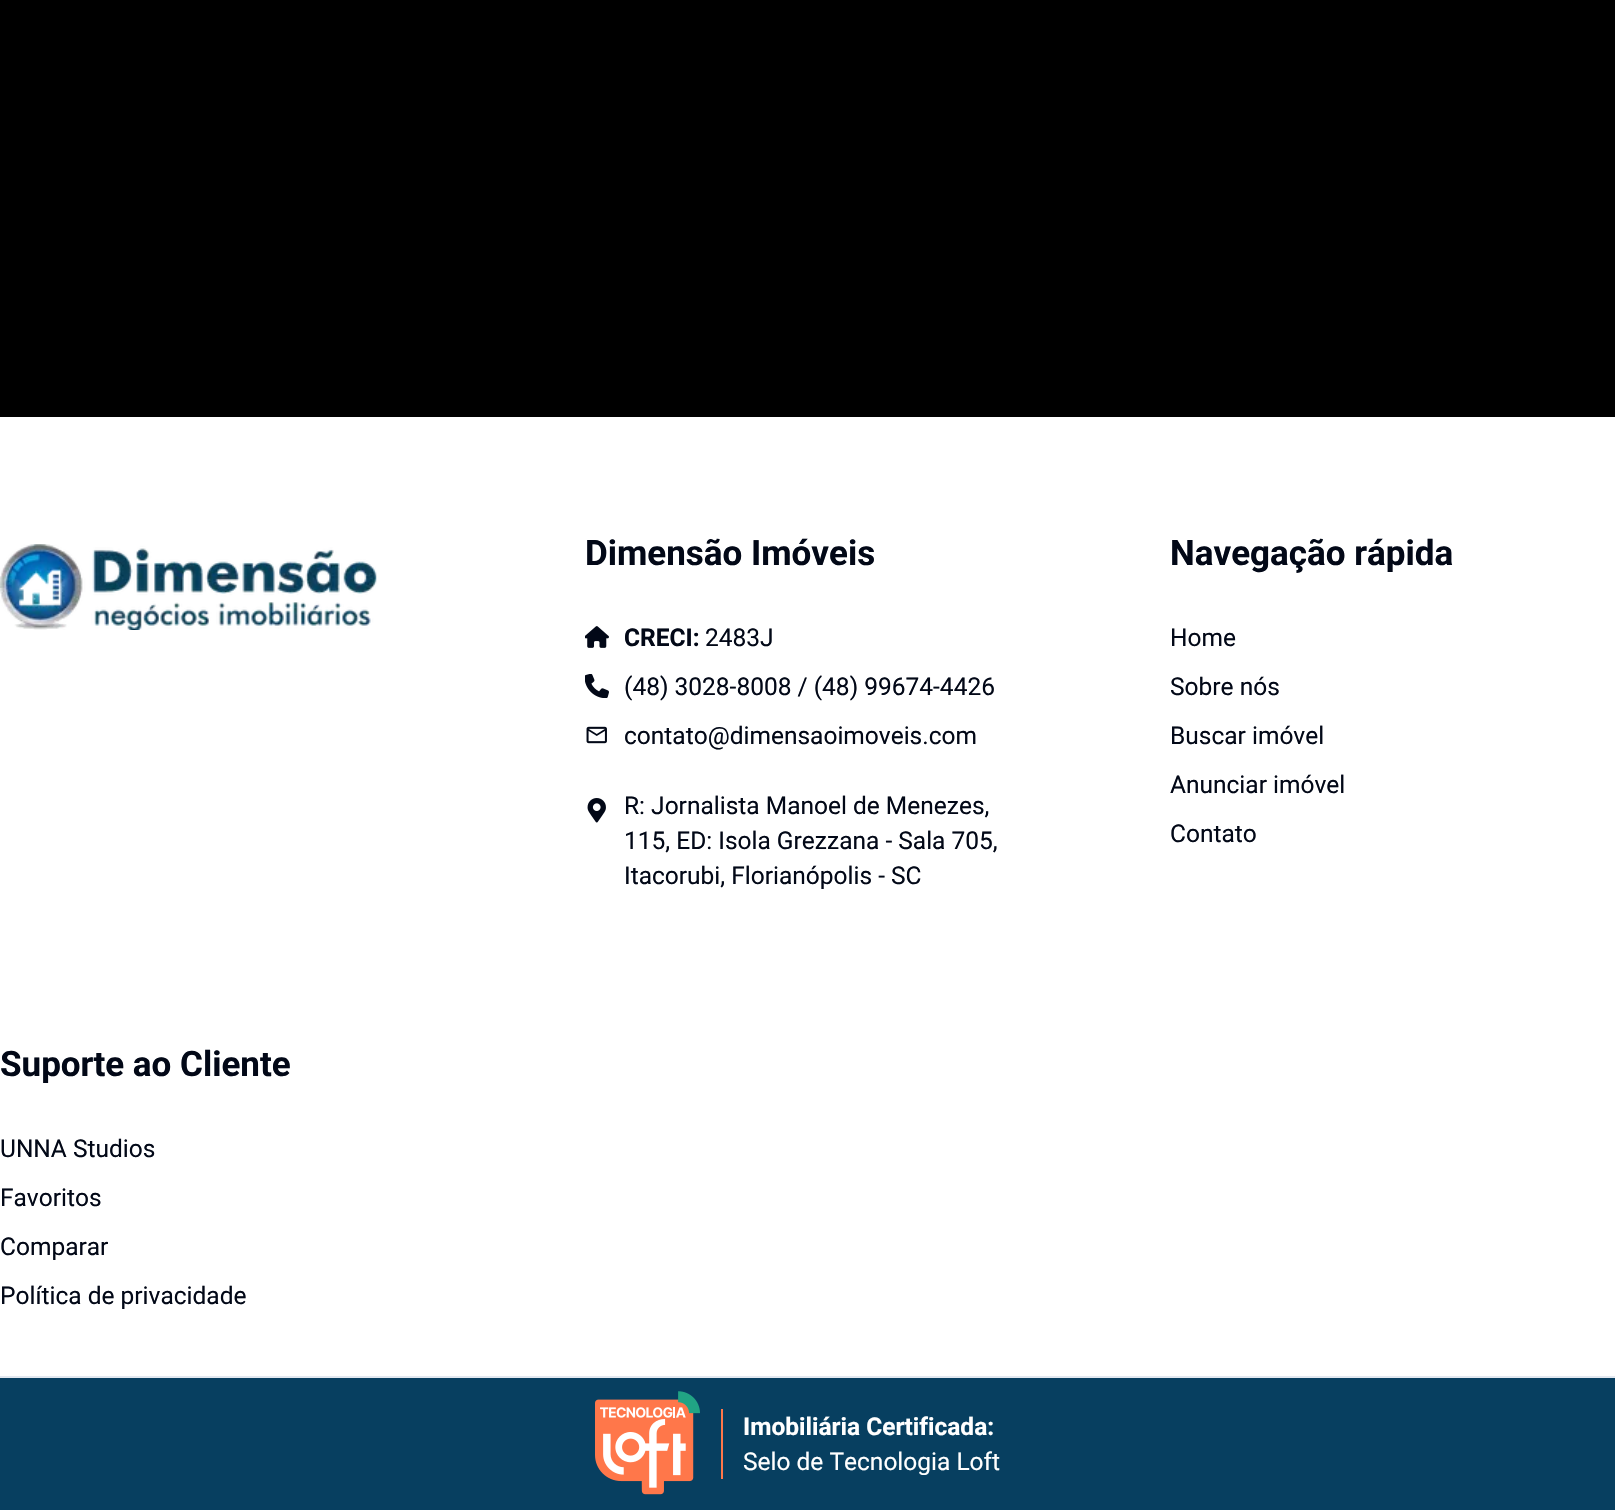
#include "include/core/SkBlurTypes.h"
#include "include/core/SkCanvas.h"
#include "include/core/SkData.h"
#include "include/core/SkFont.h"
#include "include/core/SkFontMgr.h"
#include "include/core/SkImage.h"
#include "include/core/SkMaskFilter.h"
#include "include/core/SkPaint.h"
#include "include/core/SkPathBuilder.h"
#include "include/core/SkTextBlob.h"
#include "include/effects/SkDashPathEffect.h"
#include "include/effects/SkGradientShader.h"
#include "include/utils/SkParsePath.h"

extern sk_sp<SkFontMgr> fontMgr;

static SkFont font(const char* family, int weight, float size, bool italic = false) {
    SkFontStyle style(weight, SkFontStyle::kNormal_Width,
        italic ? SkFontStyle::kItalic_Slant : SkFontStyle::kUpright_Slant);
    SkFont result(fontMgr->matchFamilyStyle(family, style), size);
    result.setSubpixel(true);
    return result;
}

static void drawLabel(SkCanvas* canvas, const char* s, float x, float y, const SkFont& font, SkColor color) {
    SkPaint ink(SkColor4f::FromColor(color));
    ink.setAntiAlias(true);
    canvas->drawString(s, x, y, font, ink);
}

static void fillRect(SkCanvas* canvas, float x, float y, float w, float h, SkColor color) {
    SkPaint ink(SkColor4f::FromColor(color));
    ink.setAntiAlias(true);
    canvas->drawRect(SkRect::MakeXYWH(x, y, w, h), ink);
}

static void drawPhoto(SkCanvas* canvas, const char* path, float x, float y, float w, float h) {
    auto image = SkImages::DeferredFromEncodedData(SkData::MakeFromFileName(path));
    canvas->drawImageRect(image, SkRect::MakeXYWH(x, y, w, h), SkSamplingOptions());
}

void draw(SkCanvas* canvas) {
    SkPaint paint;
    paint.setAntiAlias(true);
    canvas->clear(0xFF000000);
    fillRect(canvas, 0, 417, 1615, 959, 0xFFFFFFFF);
    drawPhoto(canvas, "assets/img1.png", 0, 544, 377, 86);
    SkFont font1 = font("Roboto", 700, 35);
    drawLabel(canvas, "Dimensão Imóveis", 585, 565, font1, 0xFF020817);
    drawPhoto(canvas, "assets/img2.png", 585, 626, 24, 22);
    SkFont font2 = font("Roboto", 700, 24.5f);
    drawLabel(canvas, "CRECI:", 624, 646, font2, 0xFF020817);
    SkFont font3 = font("Roboto", 400, 24.5f);
    drawLabel(canvas, "2483J", 705, 646, font3, 0xFF020817);
    drawPhoto(canvas, "assets/img3.png", 585, 674, 24, 24);
    drawLabel(canvas, "(48) 3028-8008 / (48) 99674-4426", 624, 695, font3, 0xFF020817);
    drawPhoto(canvas, "assets/img4.png", 586, 726, 21, 18);
    drawLabel(canvas, "contato@dimensaoimoveis.com", 624, 744, font3, 0xFF020817);
    drawPhoto(canvas, "assets/img5.png", 587, 798, 19, 25);
    drawLabel(canvas, "R: Jornalista Manoel de Menezes,", 624, 814, font3, 0xFF020817);
    drawLabel(canvas, "115, ED: Isola Grezzana - Sala 705,", 624, 849, font3, 0xFF020817);
    drawLabel(canvas, "Itacorubi, Florianópolis - SC", 624, 884, font3, 0xFF020817);
    drawLabel(canvas, "Navegação rápida", 1170, 565, font1, 0xFF020817);
    drawLabel(canvas, "Home", 1170, 646, font3, 0xFF020817);
    drawLabel(canvas, "Sobre nós", 1170, 695, font3, 0xFF020817);
    drawLabel(canvas, "Buscar imóvel", 1170, 744, font3, 0xFF020817);
    drawLabel(canvas, "Anunciar imóvel", 1170, 793, font3, 0xFF020817);
    drawLabel(canvas, "Contato", 1170, 842, font3, 0xFF020817);
    drawLabel(canvas, "Suporte ao Cliente", 0, 1076, font1, 0xFF020817);
    drawLabel(canvas, "UNNA Studios", 0, 1157, font3, 0xFF020817);
    drawLabel(canvas, "Favoritos", 0, 1206, font3, 0xFF020817);
    drawLabel(canvas, "Comparar", 0, 1255, font3, 0xFF020817);
    drawLabel(canvas, "Política de privacidade", 0, 1304, font3, 0xFF020817);
    fillRect(canvas, 0, 1378, 1615, 132, 0xFF073F60);
    fillRect(canvas, 0, 1376, 1615, 2, 0xFFE2E8F0);
    drawPhoto(canvas, "assets/img6.png", 595, 1391, 105, 104);
    fillRect(canvas, 721, 1409, 2, 70, 0xFFFF774A);
    drawLabel(canvas, "Imobiliária Certificada:", 743, 1435, font2, 0xFFFFFFFF);
    drawLabel(canvas, "Selo de Tecnologia Loft", 743, 1470, font3, 0xFFFFFFFF);
}
